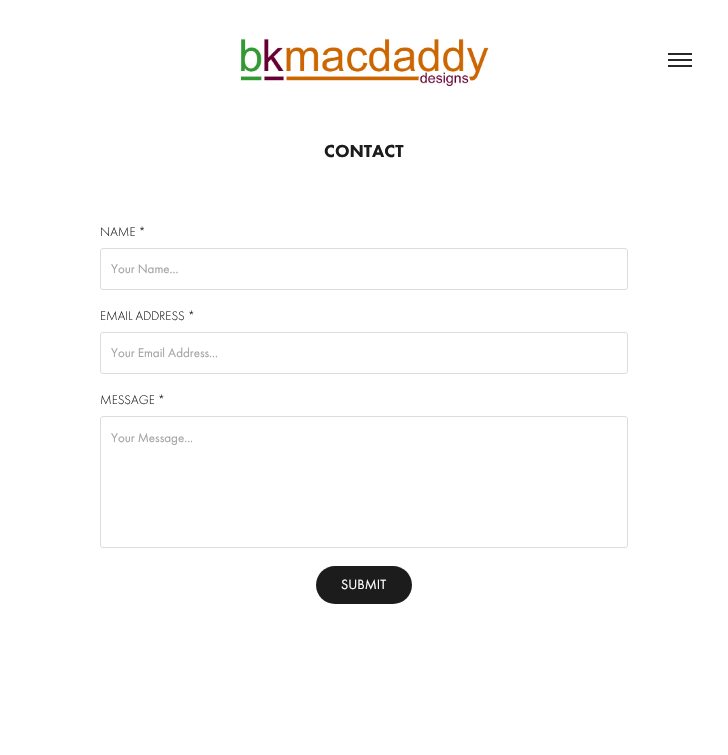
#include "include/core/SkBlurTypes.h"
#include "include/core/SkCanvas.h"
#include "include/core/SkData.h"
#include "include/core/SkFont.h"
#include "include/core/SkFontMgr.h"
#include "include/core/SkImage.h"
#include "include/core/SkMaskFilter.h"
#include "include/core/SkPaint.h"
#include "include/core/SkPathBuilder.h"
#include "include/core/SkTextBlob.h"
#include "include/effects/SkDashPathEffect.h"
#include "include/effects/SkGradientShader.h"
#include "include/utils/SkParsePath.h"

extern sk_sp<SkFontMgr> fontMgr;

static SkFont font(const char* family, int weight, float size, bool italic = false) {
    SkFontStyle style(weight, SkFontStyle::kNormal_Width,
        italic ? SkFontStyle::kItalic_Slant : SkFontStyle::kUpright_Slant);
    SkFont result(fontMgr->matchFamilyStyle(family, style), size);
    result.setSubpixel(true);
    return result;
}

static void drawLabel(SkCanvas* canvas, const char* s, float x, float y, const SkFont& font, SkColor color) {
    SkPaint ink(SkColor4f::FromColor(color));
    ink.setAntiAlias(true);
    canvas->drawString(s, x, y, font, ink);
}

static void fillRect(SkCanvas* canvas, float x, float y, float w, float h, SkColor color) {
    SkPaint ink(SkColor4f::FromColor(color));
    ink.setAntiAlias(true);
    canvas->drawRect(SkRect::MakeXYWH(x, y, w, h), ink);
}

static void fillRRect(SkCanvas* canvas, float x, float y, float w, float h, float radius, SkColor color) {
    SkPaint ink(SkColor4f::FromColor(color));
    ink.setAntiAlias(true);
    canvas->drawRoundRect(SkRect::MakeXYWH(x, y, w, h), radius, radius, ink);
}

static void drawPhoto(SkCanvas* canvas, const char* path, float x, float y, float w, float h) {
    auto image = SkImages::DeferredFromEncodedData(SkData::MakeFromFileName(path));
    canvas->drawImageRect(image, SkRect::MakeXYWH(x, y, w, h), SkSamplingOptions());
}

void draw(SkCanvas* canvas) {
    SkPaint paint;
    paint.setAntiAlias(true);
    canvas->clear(0xFFFFFFFF);
    drawPhoto(canvas, "assets/img1.png", 240, 38, 249, 48);
    fillRect(canvas, 668, 53, 24, 2, 0xFF282828);
    fillRect(canvas, 668, 59, 24, 2, 0xFF282828);
    fillRect(canvas, 668, 65, 24, 2, 0xFF282828);
    SkFont font1 = font("Futura PT", 900, 18);
    drawLabel(canvas, "CONTACT", 324, 157, font1, 0xFF1C1C1C);
    SkFont font2 = font("Futura PT", 300, 13);
    drawLabel(canvas, "NAME *", 100, 236, font2, 0xFF1C1C1C);
    paint.setStroke(true);
    paint.setStrokeWidth(1);
    paint.setColor(0xFFDDDDDD);
    canvas->drawRoundRect(SkRect::MakeXYWH(100.5f, 248.5f, 527, 41), 2.5f, 2.5f, paint);
    SkFont font3 = font("Futura PT", 400, 13);
    drawLabel(canvas, "Your Name...", 111, 273, font3, 0xFFA4A4A4);
    drawLabel(canvas, "EMAIL ADDRESS *", 100, 320, font2, 0xFF1C1C1C);
    canvas->drawRoundRect(SkRect::MakeXYWH(100.5f, 332.5f, 527, 41), 2.5f, 2.5f, paint);
    drawLabel(canvas, "Your Email Address...", 111, 357, font3, 0xFFA4A4A4);
    drawLabel(canvas, "MESSAGE *", 100, 404, font2, 0xFF1C1C1C);
    canvas->drawRoundRect(SkRect::MakeXYWH(100.5f, 416.5f, 527, 131), 2.5f, 2.5f, paint);
    drawLabel(canvas, "Your Message...", 111, 442, font3, 0xFFA4A4A4);
    fillRRect(canvas, 316, 566, 96, 38, 19, 0xFF1C1C1C);
    SkFont font4 = font("Futura PT", 400, 14);
    drawLabel(canvas, "SUBMIT", 341, 589, font4, 0xFFFFFFFF);
}
